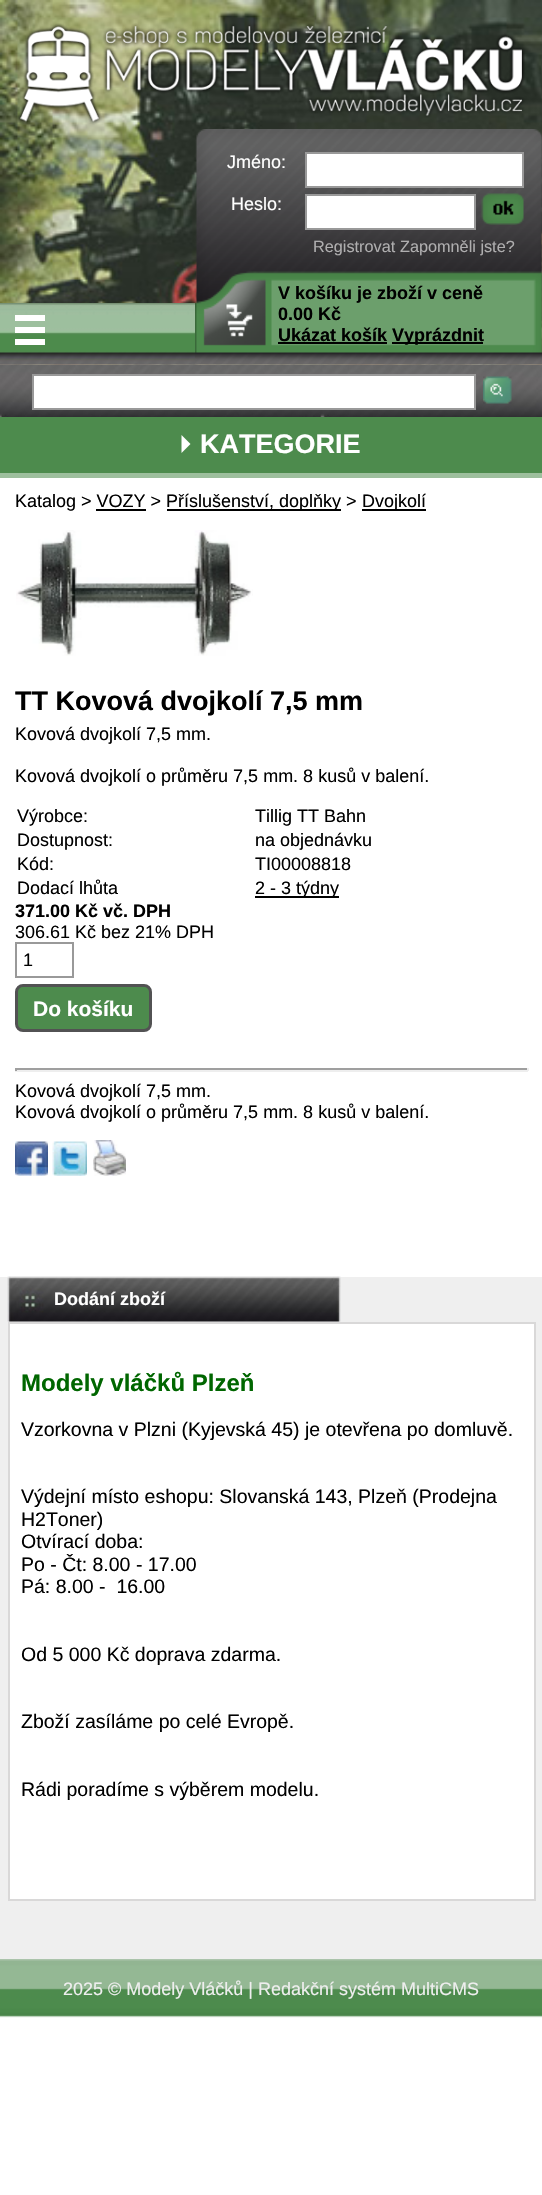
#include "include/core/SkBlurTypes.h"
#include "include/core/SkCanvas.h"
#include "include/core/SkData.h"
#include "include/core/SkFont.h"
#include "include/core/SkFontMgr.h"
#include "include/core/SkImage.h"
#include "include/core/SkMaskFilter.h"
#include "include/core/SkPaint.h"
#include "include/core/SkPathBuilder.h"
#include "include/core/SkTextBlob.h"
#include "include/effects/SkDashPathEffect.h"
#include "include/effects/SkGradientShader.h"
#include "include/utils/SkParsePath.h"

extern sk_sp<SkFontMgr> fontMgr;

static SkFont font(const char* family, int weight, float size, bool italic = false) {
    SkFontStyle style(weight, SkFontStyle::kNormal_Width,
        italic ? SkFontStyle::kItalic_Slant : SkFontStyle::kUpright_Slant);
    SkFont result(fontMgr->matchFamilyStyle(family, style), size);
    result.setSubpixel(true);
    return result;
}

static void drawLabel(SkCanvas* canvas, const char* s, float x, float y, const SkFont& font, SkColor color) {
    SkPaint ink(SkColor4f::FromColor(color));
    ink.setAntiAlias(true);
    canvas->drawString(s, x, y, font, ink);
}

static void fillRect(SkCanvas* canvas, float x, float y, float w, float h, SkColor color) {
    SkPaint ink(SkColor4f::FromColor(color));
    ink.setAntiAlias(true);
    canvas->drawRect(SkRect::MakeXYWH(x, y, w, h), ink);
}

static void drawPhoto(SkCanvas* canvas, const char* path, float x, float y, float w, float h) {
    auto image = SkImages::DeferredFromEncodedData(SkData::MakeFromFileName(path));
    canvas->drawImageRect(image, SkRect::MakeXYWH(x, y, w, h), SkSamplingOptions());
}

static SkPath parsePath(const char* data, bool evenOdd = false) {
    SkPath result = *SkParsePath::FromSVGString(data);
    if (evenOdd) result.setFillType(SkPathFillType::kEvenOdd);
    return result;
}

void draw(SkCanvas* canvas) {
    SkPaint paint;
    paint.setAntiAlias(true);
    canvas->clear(0xFFFFFFFF);
    drawPhoto(canvas, "assets/img6.png", 0, 364, 542, 53);
    drawPhoto(canvas, "assets/img1.png", 0, 0, 542, 365);
    drawPhoto(canvas, "assets/img2.png", 18, 23, 507, 102);
    drawPhoto(canvas, "assets/img3.png", 0, 303, 195, 62);
    fillRect(canvas, 15, 315, 30, 6, 0xFFFFFFFF);
    fillRect(canvas, 15, 339, 30, 6, 0xFFFFFFFF);
    fillRect(canvas, 15, 327, 30, 6, 0xFFFFFFFF);
    drawPhoto(canvas, "assets/img4.png", 195, 129, 347, 236);
    SkFont font1 = font("Liberation Sans", 400, 18);
    drawLabel(canvas, "Jméno:", 227, 168, font1, 0xFFFFFFFF);
    paint.setColor(0xFFFFFFFF);
    canvas->drawRect(SkRect::MakeXYWH(306, 153, 217, 34), paint);
    paint.setStroke(true);
    paint.setStrokeWidth(2);
    paint.setColor(0xFF999999);
    canvas->drawRect(SkRect::MakeXYWH(306, 153, 217, 34), paint);
    drawLabel(canvas, "Heslo:", 231, 210, font1, 0xFFFFFFFF);
    paint.setStroke(false);
    paint.setColor(0xFFFFFFFF);
    canvas->drawRect(SkRect::MakeXYWH(306, 195, 169, 34), paint);
    paint.setStroke(true);
    paint.setColor(0xFF999999);
    canvas->drawRect(SkRect::MakeXYWH(306, 195, 169, 34), paint);
    drawPhoto(canvas, "assets/img5.png", 481, 193, 43, 32);
    SkFont font2 = font("Liberation Sans", 400, 16.25f);
    drawLabel(canvas, "Registrovat", 313, 252, font2, 0xFFAFAEAF);
    drawLabel(canvas, "Zapomněli jste?", 400, 252, font2, 0xFFAFAEAF);
    SkFont font3 = font("Liberation Sans", 700, 18);
    drawLabel(canvas, "V košíku je zboží v ceně", 278, 299, font3, 0xFF000000);
    drawLabel(canvas, "0.00 Kč", 278, 320, font3, 0xFF000000);
    drawLabel(canvas, "Ukázat košík", 278, 341, font3, 0xFF000000);
    fillRect(canvas, 278, 342, 109, 2, 0xFF000000);
    fillRect(canvas, 392, 342, 91, 2, 0xFF000000);
    drawLabel(canvas, "Vyprázdnit", 392, 341, font3, 0xFF000000);
    paint.setStroke(false);
    paint.setColor(0xFFFFFFFF);
    canvas->drawRect(SkRect::MakeXYWH(33, 375, 442, 34), paint);
    paint.setStroke(true);
    paint.setColor(0xFF999999);
    canvas->drawRect(SkRect::MakeXYWH(33, 375, 442, 34), paint);
    drawPhoto(canvas, "assets/img7.png", 483, 376, 29, 28);
    fillRect(canvas, 0, 417, 542, 56, 0xFF4D8B4D);
    fillRect(canvas, 0, 473, 542, 5, 0xFF9DBF9D);
    paint.setStroke(false);
    paint.setColor(0xFFFFFFFF);
    canvas->drawPath(parsePath("M181.5 453V435L190.5 444Z"), paint);
    SkFont font4 = font("Liberation Sans", 700, 27);
    drawLabel(canvas, "KATEGORIE", 200, 453, font4, 0xFFFFFFFF);
    drawLabel(canvas, "Katalog > VOZY >", 15, 507, font1, 0xFF000000);
    fillRect(canvas, 167, 509, 174, 2, 0xFF000000);
    drawLabel(canvas, "Příslušenství, doplňky >", 166, 507, font1, 0xFF000000);
    fillRect(canvas, 362, 509, 64, 2, 0xFF000000);
    drawLabel(canvas, "Dvojkolí", 362, 507, font1, 0xFF000000);
    fillRect(canvas, 96, 509, 50, 2, 0xFF000000);
    drawPhoto(canvas, "assets/img8.png", 16, 530, 237, 126);
    drawLabel(canvas, "TT Kovová dvojkolí 7,5 mm", 15, 710, font4, 0xFF000000);
    drawLabel(canvas, "Kovová dvojkolí 7,5 mm.", 15, 740, font1, 0xFF000000);
    drawLabel(canvas, "Kovová dvojkolí o průměru 7,5 mm. 8 kusů v balení.", 15, 782, font1, 0xFF000000);
    drawLabel(canvas, "Výrobce:", 17, 822, font1, 0xFF000000);
    drawLabel(canvas, "Tillig TT Bahn", 255, 822, font1, 0xFF000000);
    drawLabel(canvas, "Dostupnost:", 17, 846, font1, 0xFF000000);
    drawLabel(canvas, "na objednávku", 255, 846, font1, 0xFF000000);
    drawLabel(canvas, "Kód:", 17, 870, font1, 0xFF000000);
    drawLabel(canvas, "TI00008818", 255, 870, font1, 0xFF000000);
    drawLabel(canvas, "Dodací lhůta", 17, 894, font1, 0xFF000000);
    fillRect(canvas, 255, 896, 84, 2, 0xFF000000);
    drawLabel(canvas, "2 - 3 týdny", 255, 894, font1, 0xFF000000);
    drawLabel(canvas, "371.00 Kč vč. DPH", 15, 917, font3, 0xFF000000);
    drawLabel(canvas, "306.61 Kč bez 21% DPH", 15, 938, font1, 0xFF000000);
    paint.setStroke(true);
    paint.setColor(0xFF999999);
    canvas->drawRect(SkRect::MakeXYWH(16, 943, 57, 34), paint);
    drawLabel(canvas, "1", 23, 966, font1, 0xFF000000);
    paint.setStroke(false);
    paint.setColor(0xFF4D8B4D);
    canvas->drawRoundRect(SkRect::MakeXYWH(16.5f, 985.5f, 134, 45), 6.5f, 6.5f, paint);
    paint.setStroke(true);
    paint.setStrokeWidth(3);
    paint.setColor(0xFF525253);
    canvas->drawRoundRect(SkRect::MakeXYWH(16.5f, 985.5f, 134, 45), 6.5f, 6.5f, paint);
    SkFont font5 = font("Liberation Sans", 700, 21);
    drawLabel(canvas, "Do košíku", 33, 1016, font5, 0xFFFFFFFF);
    fillRect(canvas, 15, 1068, 513, 2, 0xFF9F9F9F);
    fillRect(canvas, 527, 1068, 2, 3, 0xFFEEEEEE);
    fillRect(canvas, 15, 1070, 513, 2, 0xFFEEEEEE);
    fillRect(canvas, 15, 1068, 2, 3, 0xFF9F9F9F);
    drawLabel(canvas, "Kovová dvojkolí 7,5 mm.", 15, 1097, font1, 0xFF000000);
    drawLabel(canvas, "Kovová dvojkolí o průměru 7,5 mm. 8 kusů v balení.", 15, 1118, font1, 0xFF000000);
    drawPhoto(canvas, "assets/img9.png", 15, 1141, 33, 35);
    drawPhoto(canvas, "assets/img10.png", 52, 1141, 35, 35);
    drawPhoto(canvas, "assets/img11.png", 93, 1140, 33, 36);
    fillRect(canvas, 0, 1277, 542, 682, 0xFFEFEFEF);
    drawPhoto(canvas, "assets/img12.png", 7, 1276, 334, 46);
    drawLabel(canvas, "Dodání zboží", 54, 1305, font3, 0xFFFFFFFF);
    paint.setStroke(false);
    paint.setColor(0xFFFFFFFF);
    canvas->drawRect(SkRect::MakeXYWH(9, 1323, 526, 577), paint);
    paint.setStroke(true);
    paint.setStrokeWidth(2);
    paint.setColor(0xFFD9D8D8);
    canvas->drawRect(SkRect::MakeXYWH(9, 1323, 526, 577), paint);
    SkFont font6 = font("Liberation Sans", 700, 24);
    drawLabel(canvas, "Modely vláčků Plzeň", 21, 1391, font6, 0xFF006600);
    SkFont font7 = font("Liberation Sans", 400, 19.5f);
    drawLabel(canvas, "Vzorkovna v Plzni (Kyjevská 45) je otevřena po domluvě.", 21, 1436, font7, 0xFF000000);
    drawLabel(canvas, "Výdejní místo eshopu: Slovanská 143, Plzeň (Prodejna", 21, 1503, font7, 0xFF000000);
    drawLabel(canvas, "H2Toner)", 21, 1526, font7, 0xFF000000);
    drawLabel(canvas, "Otvírací doba:", 21, 1548, font7, 0xFF000000);
    drawLabel(canvas, "Po - Čt: 8.00 - 17.00", 21, 1571, font7, 0xFF000000);
    drawLabel(canvas, "Pá: 8.00 -  16.00", 21, 1593, font7, 0xFF000000);
    drawLabel(canvas, "Od 5 000 Kč doprava zdarma.", 21, 1661, font7, 0xFF000000);
    drawLabel(canvas, "Zboží zasíláme po celé Evropě.", 21, 1728, font7, 0xFF000000);
    drawLabel(canvas, "Rádi poradíme s výběrem modelu.", 21, 1796, font7, 0xFF000000);
    drawPhoto(canvas, "assets/img13.png", 0, 1959, 542, 59);
    drawLabel(canvas, "2025 © Modely Vláčků | Redakční systém MultiCMS", 63, 1995, font1, 0xFFEEEEEE);
}
